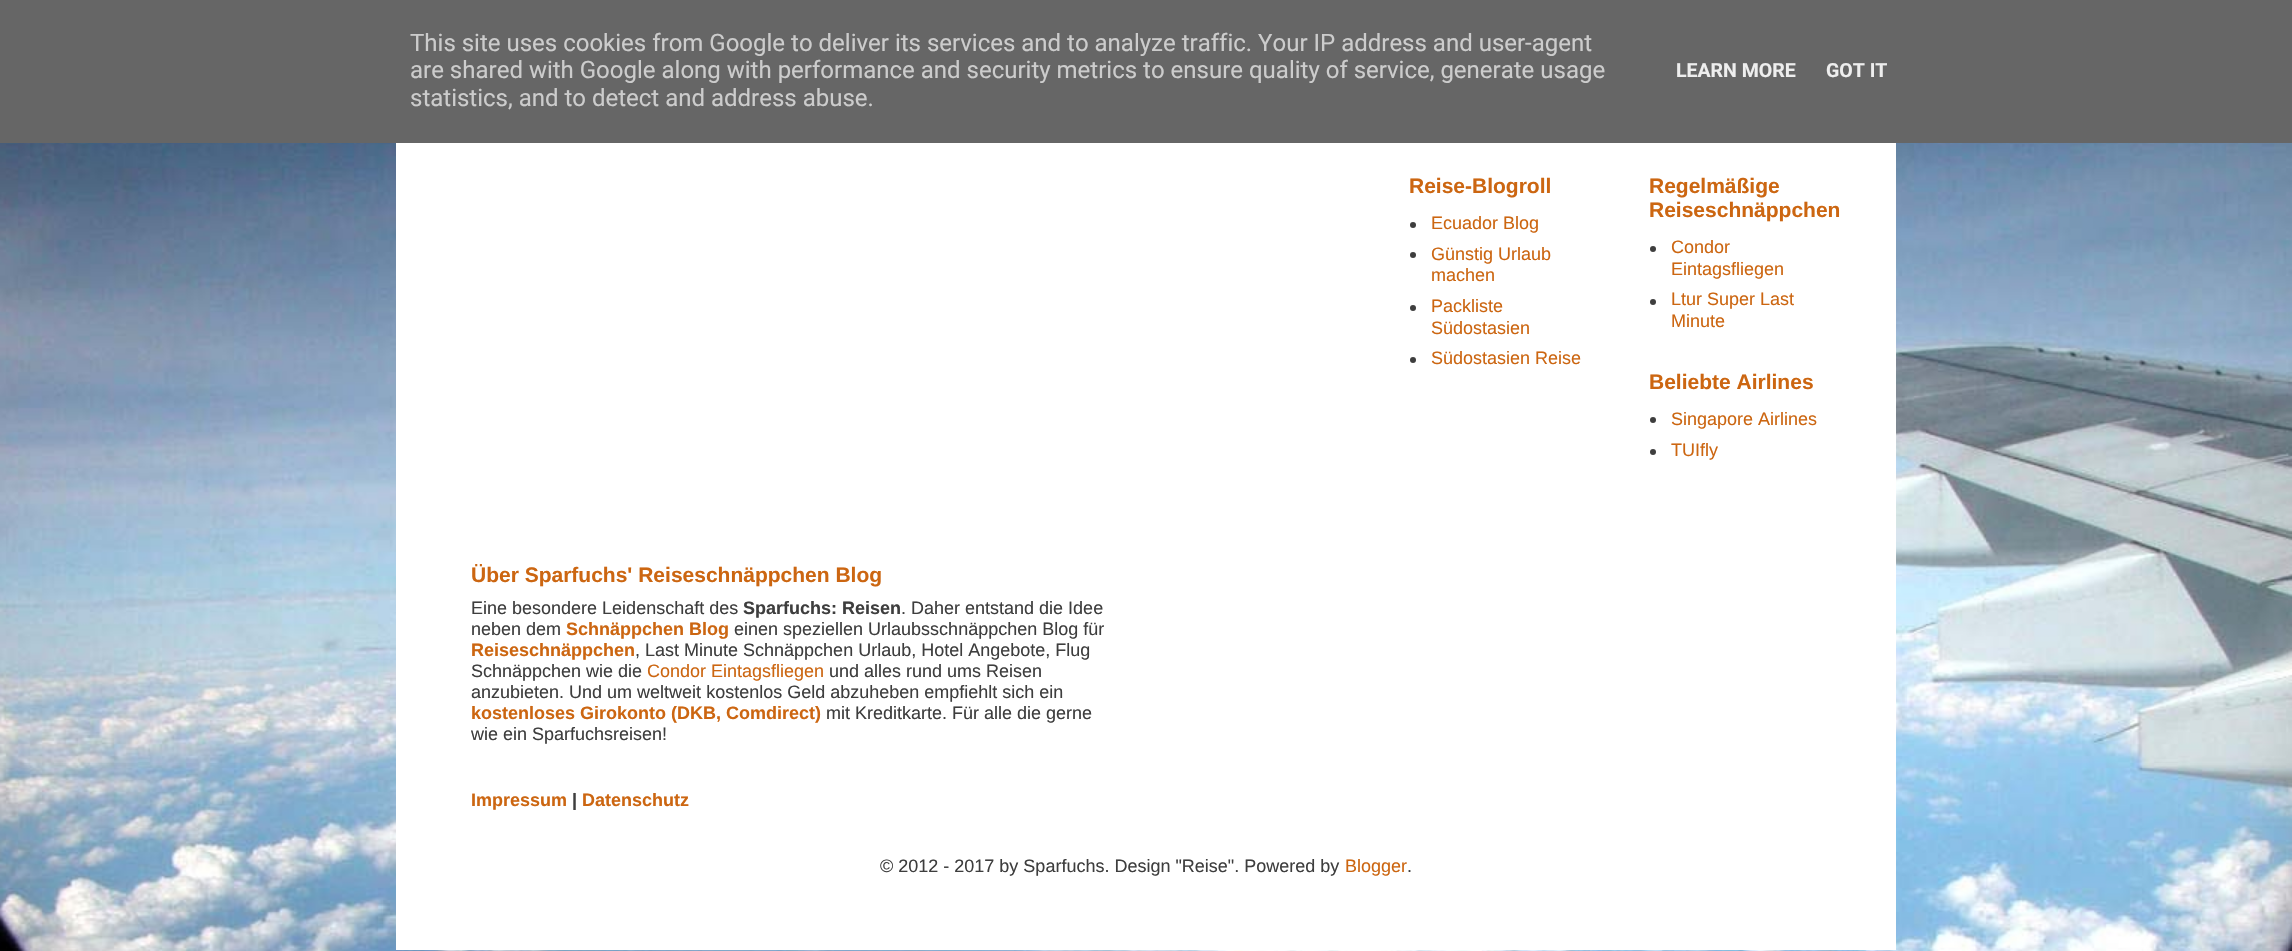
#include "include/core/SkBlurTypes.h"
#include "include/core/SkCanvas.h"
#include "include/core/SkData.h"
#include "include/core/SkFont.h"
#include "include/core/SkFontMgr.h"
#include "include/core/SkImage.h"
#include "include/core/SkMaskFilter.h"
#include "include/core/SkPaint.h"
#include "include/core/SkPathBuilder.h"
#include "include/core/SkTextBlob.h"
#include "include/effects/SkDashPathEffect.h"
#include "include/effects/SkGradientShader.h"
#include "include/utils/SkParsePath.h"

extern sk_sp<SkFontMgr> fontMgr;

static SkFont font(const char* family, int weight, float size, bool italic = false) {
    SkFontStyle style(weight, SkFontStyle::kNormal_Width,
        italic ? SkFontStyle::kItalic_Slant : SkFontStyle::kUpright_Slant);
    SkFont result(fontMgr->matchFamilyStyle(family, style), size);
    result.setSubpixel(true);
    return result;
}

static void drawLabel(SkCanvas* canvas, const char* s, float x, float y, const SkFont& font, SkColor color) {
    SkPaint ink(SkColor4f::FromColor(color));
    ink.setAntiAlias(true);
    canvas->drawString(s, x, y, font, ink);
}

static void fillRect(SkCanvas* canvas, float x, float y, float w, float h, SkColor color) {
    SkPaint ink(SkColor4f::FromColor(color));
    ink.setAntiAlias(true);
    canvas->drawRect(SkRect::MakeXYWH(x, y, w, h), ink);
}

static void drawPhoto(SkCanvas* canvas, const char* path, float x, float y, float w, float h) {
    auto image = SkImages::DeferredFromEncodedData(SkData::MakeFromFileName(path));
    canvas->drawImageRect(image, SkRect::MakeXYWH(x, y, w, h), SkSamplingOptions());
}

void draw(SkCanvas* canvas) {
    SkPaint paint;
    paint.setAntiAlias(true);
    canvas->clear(0xFFFFFFFF);
    drawPhoto(canvas, "assets/img1.png", 0, 143, 2292, 808);
    fillRect(canvas, 0, 0, 2292, 143, 0xFF666666);
    SkFont font1 = font("Roboto", 400, 24);
    drawLabel(canvas, "This site uses cookies from Google to deliver its services and to analyze traffic. Your IP address and user-agent", 410, 51, font1, 0xFFCCCCCC);
    drawLabel(canvas, "are shared with Google along with performance and security metrics to ensure quality of service, generate usage", 410, 78, font1, 0xFFCCCCCC);
    drawLabel(canvas, "statistics, and to detect and address abuse.", 410, 106, font1, 0xFFCCCCCC);
    SkFont font2 = font("Roboto", 700, 19.5f);
    drawLabel(canvas, "LEARN MORE", 1676, 77, font2, 0xFFEEEEEE);
    drawLabel(canvas, "GOT IT", 1826, 77, font2, 0xFFEEEEEE);
    fillRect(canvas, 396, 143, 1500, 807, 0xFFFFFFFF);
    SkFont font3 = font("Liberation Sans", 700, 21);
    drawLabel(canvas, "Reise-Blogroll", 1409, 193, font3, 0xFFCC6611);
    paint.setColor(0xFF3E3E3E);
    canvas->drawCircle(1413, 225, 3, paint);
    SkFont font4 = font("Liberation Sans", 400, 18);
    drawLabel(canvas, "Ecuador Blog", 1431, 229, font4, 0xFFCC6611);
    canvas->drawCircle(1413, 255, 3, paint);
    drawLabel(canvas, "Günstig Urlaub", 1431, 260, font4, 0xFFCC6611);
    drawLabel(canvas, "machen", 1431, 281, font4, 0xFFCC6611);
    canvas->drawCircle(1413, 308, 3, paint);
    drawLabel(canvas, "Packliste", 1431, 312, font4, 0xFFCC6611);
    drawLabel(canvas, "Südostasien", 1431, 334, font4, 0xFFCC6611);
    canvas->drawCircle(1413, 360, 3, paint);
    drawLabel(canvas, "Südostasien Reise", 1431, 364, font4, 0xFFCC6611);
    drawLabel(canvas, "Regelmäßige", 1649, 193, font3, 0xFFCC6611);
    drawLabel(canvas, "Reiseschnäppchen", 1649, 217, font3, 0xFFCC6611);
    canvas->drawCircle(1653, 249, 3, paint);
    drawLabel(canvas, "Condor", 1671, 253, font4, 0xFFCC6611);
    drawLabel(canvas, "Eintagsfliegen", 1671, 275, font4, 0xFFCC6611);
    canvas->drawCircle(1653, 302, 3, paint);
    drawLabel(canvas, "Ltur Super Last", 1671, 305, font4, 0xFFCC6611);
    drawLabel(canvas, "Minute", 1671, 327, font4, 0xFFCC6611);
    drawLabel(canvas, "Beliebte Airlines", 1649, 389, font3, 0xFFCC6611);
    canvas->drawCircle(1653, 420, 3, paint);
    drawLabel(canvas, "Singapore Airlines", 1671, 425, font4, 0xFFCC6611);
    canvas->drawCircle(1653, 452, 3, paint);
    drawLabel(canvas, "TUIfly", 1671, 456, font4, 0xFFCC6611);
    drawLabel(canvas, "Über Sparfuchs' Reiseschnäppchen Blog", 471, 582, font3, 0xFFCC6611);
    drawLabel(canvas, "Eine besondere Leidenschaft des", 471, 614, font4, 0xFF3E3E3E);
    SkFont font5 = font("Liberation Sans", 700, 18);
    drawLabel(canvas, "Sparfuchs: Reisen", 743, 614, font5, 0xFF3E3E3E);
    drawLabel(canvas, ". Daher entstand die Idee", 901, 614, font4, 0xFF3E3E3E);
    drawLabel(canvas, "neben dem", 471, 635, font4, 0xFF3E3E3E);
    drawLabel(canvas, "Schnäppchen Blog", 566, 635, font5, 0xFFCC6611);
    drawLabel(canvas, "einen speziellen Urlaubsschnäppchen Blog für", 734, 635, font4, 0xFF3E3E3E);
    drawLabel(canvas, "Reiseschnäppchen", 471, 656, font5, 0xFFCC6611);
    drawLabel(canvas, ", Last Minute Schnäppchen Urlaub, Hotel Angebote, Flug", 635, 656, font4, 0xFF3E3E3E);
    drawLabel(canvas, "Schnäppchen wie die", 471, 677, font4, 0xFF3E3E3E);
    drawLabel(canvas, "Condor Eintagsfliegen", 647, 677, font4, 0xFFCC6611);
    drawLabel(canvas, "und alles rund ums Reisen", 829, 677, font4, 0xFF3E3E3E);
    drawLabel(canvas, "anzubieten. Und um weltweit kostenlos Geld abzuheben empfiehlt sich ein", 471, 698, font4, 0xFF3E3E3E);
    drawLabel(canvas, "kostenloses Girokonto (DKB, Comdirect)", 471, 719, font5, 0xFFCC6611);
    drawLabel(canvas, "mit Kreditkarte. Für alle die gerne", 826, 719, font4, 0xFF3E3E3E);
    drawLabel(canvas, "wie ein Sparfuchsreisen!", 471, 740, font4, 0xFF3E3E3E);
    drawLabel(canvas, "Impressum", 471, 806, font5, 0xFFCC6611);
    drawLabel(canvas, "|", 572, 806, font5, 0xFF3E3E3E);
    drawLabel(canvas, "Datenschutz", 582, 806, font5, 0xFFCC6611);
    drawLabel(canvas, "© 2012 - 2017 by Sparfuchs. Design \"Reise\". Powered by", 880, 872, font4, 0xFF3E3E3E);
    drawLabel(canvas, "Blogger", 1345, 872, font4, 0xFFCC6611);
    drawLabel(canvas, ".", 1407, 872, font4, 0xFF3E3E3E);
}
